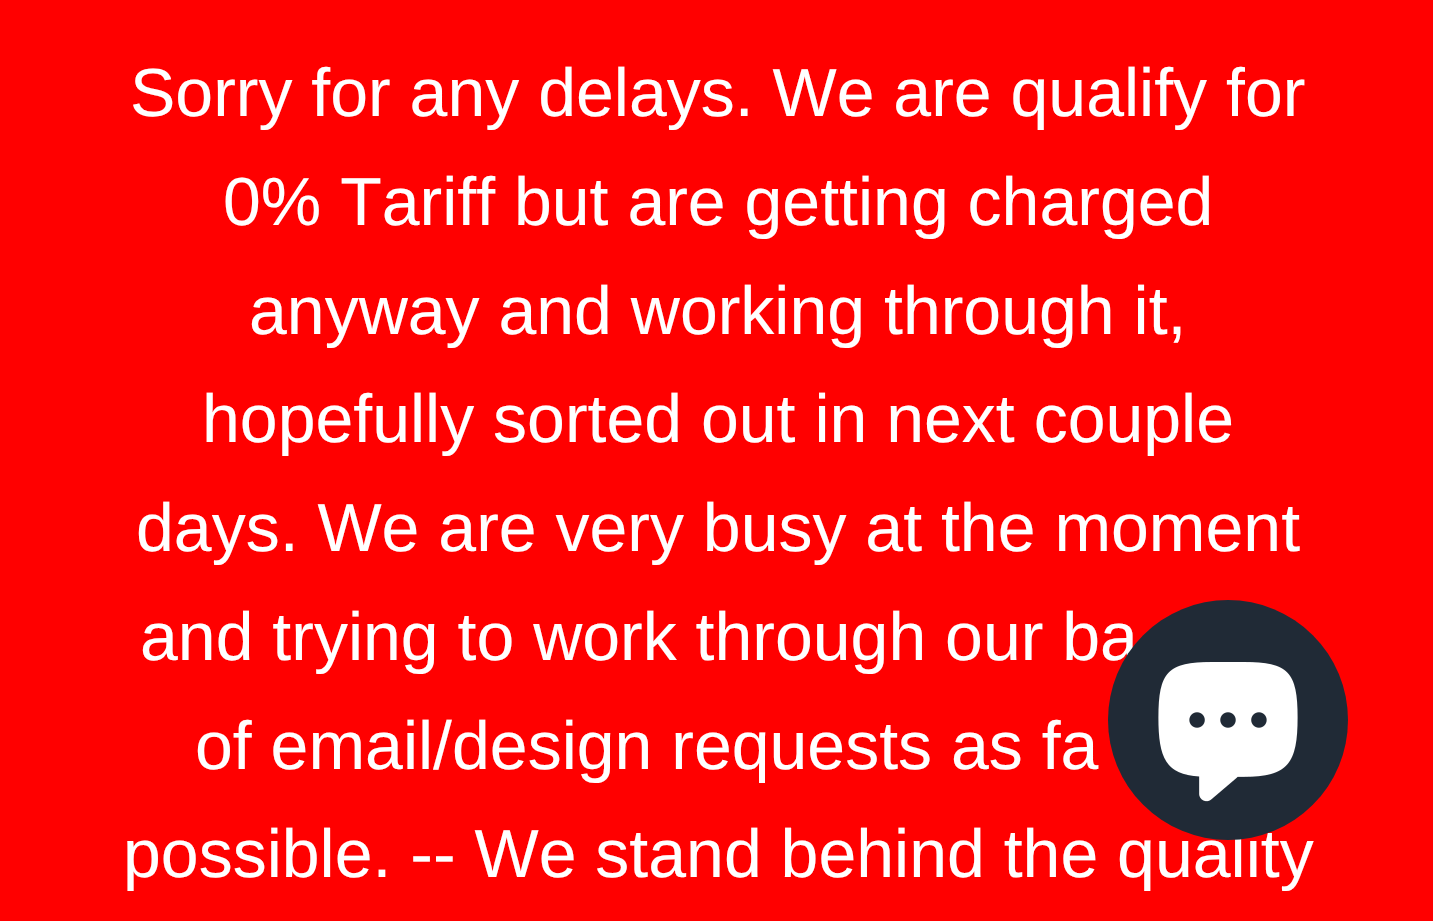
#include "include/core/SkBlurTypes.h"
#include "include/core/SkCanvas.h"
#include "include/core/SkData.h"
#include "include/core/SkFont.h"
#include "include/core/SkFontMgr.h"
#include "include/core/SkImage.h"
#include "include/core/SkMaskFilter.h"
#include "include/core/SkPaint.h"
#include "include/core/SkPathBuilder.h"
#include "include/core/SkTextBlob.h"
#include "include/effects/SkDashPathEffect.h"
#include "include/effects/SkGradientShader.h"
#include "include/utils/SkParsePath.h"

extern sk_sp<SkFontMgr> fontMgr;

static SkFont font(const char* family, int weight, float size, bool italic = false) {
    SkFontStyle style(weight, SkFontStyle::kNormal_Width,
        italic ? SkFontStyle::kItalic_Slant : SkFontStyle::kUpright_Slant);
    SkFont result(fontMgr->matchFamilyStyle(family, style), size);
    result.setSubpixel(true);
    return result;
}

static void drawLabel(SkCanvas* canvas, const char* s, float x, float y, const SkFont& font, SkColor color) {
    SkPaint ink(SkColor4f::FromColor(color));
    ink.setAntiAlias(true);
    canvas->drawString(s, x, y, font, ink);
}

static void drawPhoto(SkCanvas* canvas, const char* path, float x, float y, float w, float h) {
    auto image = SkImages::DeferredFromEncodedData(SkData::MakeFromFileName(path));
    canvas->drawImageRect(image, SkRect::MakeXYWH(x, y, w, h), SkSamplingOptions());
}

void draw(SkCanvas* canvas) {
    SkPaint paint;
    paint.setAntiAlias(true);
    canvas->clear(0xFFFF0000);
    SkFont font1 = font("Liberation Sans", 400, 68);
    drawLabel(canvas, "Sorry for any delays. We are qualify for", 130, 116, font1, 0xFFFFFFFF);
    drawLabel(canvas, "0% Tariff but are getting charged", 223, 225, font1, 0xFFFFFFFF);
    drawLabel(canvas, "anyway and working through it,", 249, 334, font1, 0xFFFFFFFF);
    drawLabel(canvas, "hopefully sorted out in next couple", 202, 442, font1, 0xFFFFFFFF);
    drawLabel(canvas, "days. We are very busy at the moment", 136, 551, font1, 0xFFFFFFFF);
    drawLabel(canvas, "and trying to work through our ba", 140, 660, font1, 0xFFFFFFFF);
    drawLabel(canvas, "of email/design requests as fa", 195, 769, font1, 0xFFFFFFFF);
    drawLabel(canvas, "possible. -- We stand behind the quality", 123, 877, font1, 0xFFFFFFFF);
    paint.setColor(0xFF202A36);
    canvas->drawCircle(1228, 720, 120, paint);
    drawPhoto(canvas, "assets/img1.png", 1158, 662, 140, 140);
}
